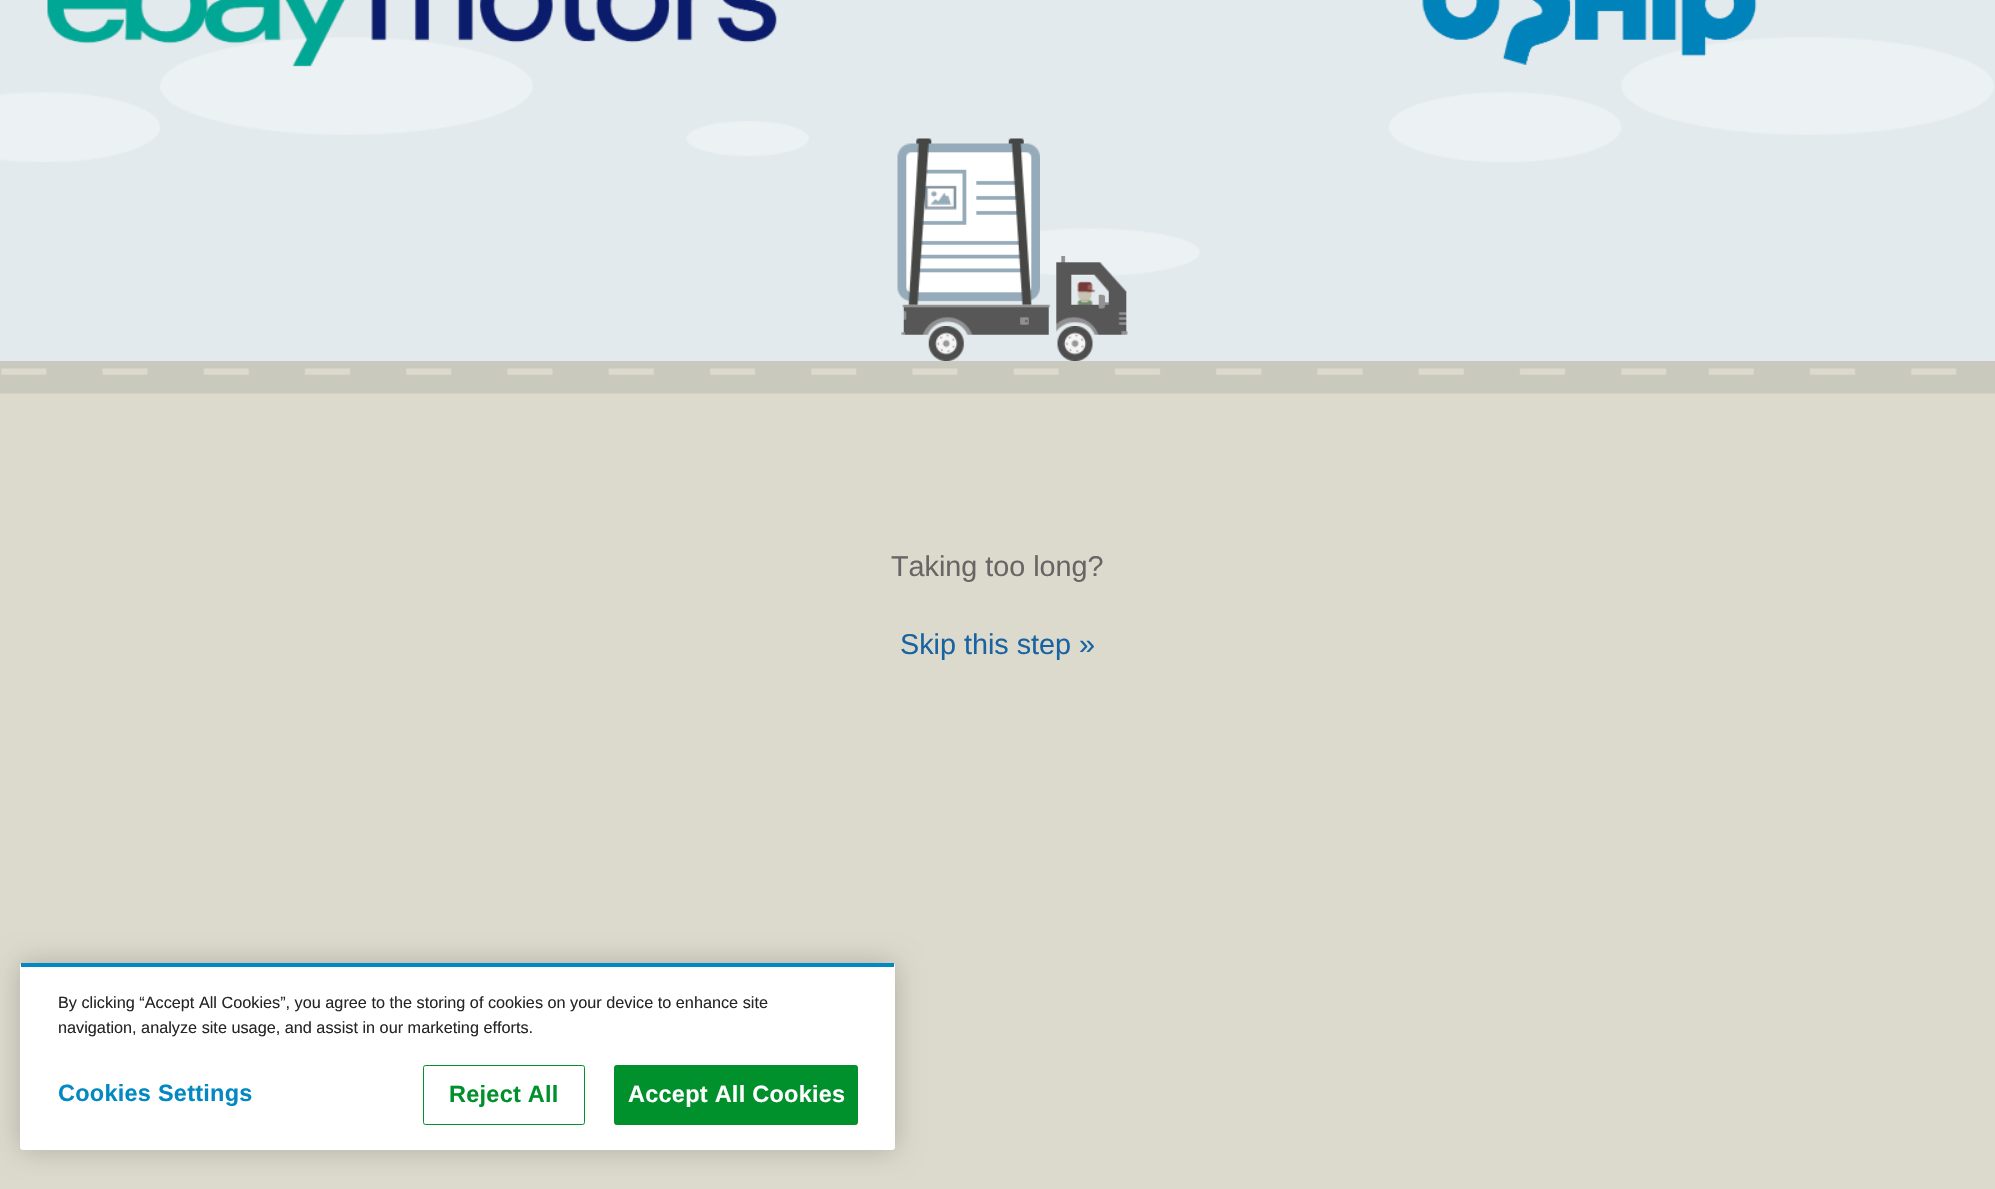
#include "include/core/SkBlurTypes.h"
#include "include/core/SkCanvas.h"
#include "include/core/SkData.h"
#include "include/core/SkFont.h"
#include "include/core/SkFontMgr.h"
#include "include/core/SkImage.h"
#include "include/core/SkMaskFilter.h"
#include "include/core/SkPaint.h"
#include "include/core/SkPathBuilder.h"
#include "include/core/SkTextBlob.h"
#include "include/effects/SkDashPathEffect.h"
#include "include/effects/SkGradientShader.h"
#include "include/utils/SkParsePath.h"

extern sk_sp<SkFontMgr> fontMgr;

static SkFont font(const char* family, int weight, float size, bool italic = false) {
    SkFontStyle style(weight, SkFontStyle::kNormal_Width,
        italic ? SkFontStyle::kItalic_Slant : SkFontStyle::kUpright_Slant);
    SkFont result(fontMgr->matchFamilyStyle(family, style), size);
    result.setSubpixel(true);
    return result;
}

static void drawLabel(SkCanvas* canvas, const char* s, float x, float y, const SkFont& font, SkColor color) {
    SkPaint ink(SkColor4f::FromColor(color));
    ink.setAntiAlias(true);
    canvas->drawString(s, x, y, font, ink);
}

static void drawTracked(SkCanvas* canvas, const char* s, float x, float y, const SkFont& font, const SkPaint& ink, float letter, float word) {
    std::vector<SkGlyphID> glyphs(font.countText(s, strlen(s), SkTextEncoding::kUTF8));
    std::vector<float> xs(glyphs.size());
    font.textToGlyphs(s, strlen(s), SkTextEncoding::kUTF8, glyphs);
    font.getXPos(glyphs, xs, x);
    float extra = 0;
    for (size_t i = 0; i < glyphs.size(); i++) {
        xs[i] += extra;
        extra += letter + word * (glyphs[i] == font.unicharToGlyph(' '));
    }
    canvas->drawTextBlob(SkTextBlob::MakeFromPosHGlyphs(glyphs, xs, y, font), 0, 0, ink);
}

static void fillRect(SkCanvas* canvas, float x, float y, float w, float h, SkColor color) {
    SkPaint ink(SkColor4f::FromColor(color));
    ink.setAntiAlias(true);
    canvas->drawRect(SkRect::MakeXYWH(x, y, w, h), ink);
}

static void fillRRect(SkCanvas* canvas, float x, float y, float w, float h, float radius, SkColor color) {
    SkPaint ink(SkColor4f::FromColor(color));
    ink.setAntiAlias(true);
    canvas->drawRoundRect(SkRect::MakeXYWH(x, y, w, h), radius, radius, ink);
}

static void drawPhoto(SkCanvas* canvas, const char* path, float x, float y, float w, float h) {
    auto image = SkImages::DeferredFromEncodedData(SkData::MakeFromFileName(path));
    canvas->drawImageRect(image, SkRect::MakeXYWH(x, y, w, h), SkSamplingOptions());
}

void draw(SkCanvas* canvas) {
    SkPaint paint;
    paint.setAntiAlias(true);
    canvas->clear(0xFFE3EAEE);
    drawPhoto(canvas, "assets/img1.png", 0, 37, 1994, 125);
    drawPhoto(canvas, "assets/img2.png", 686, 121, 514, 155);
    drawPhoto(canvas, "assets/img3.png", 47, 0, 730, 67);
    drawPhoto(canvas, "assets/img4.png", 1422, 0, 335, 65);
    fillRect(canvas, 0, 393, 1995, 796, 0xFFDCDACC);
    drawPhoto(canvas, "assets/img5.png", 897, 138, 143, 167);
    drawPhoto(canvas, "assets/img6.png", 901, 256, 227, 79);
    drawPhoto(canvas, "assets/img7.png", 928, 326, 36, 35);
    drawPhoto(canvas, "assets/img8.png", 1057, 326, 36, 35);
    drawPhoto(canvas, "assets/img9.png", 0, 361, 1995, 33);
    SkFont font1 = font("Liberation Sans", 400, 28.75f);
    drawLabel(canvas, "Taking too long?", 891, 576, font1, 0xFF666666);
    drawLabel(canvas, "Skip this step »", 900, 654, font1, 0xFF1A63A3);
    paint.setColor(0x33000000);
    paint.setMaskFilter(SkMaskFilter::MakeBlur(kNormal_SkBlurStyle, 14));
    canvas->drawRoundRect(SkRect::MakeXYWH(20, 963, 875, 187), 3, 3, paint);
    paint.setMaskFilter(nullptr);
    fillRRect(canvas, 20, 963, 875, 187, 3, 0xFFFFFFFF);
    fillRect(canvas, 21, 963, 873, 4, 0xFF0288C2);
    SkFont font2 = font("Liberation Sans", 400, 16.25f);
    drawLabel(canvas, "By clicking “Accept All Cookies”, you agree to the storing of cookies on your device to enhance site", 58, 1008, font2, 0xFF262626);
    drawLabel(canvas, "navigation, analyze site usage, and assist in our marketing efforts.", 58, 1033, font2, 0xFF262626);
    SkFont font3 = font("Liberation Sans", 700, 23.5f);
    paint.setColor(0xFF0288C2);
    drawTracked(canvas, "Cookies Settings", 58, 1101, font3, paint, 0.25f, 0);
    paint.setStroke(true);
    paint.setStrokeWidth(1);
    paint.setColor(0xFF00902C);
    canvas->drawRoundRect(SkRect::MakeXYWH(423.5f, 1065.5f, 161, 59), 2, 2, paint);
    paint.setStroke(false);
    drawTracked(canvas, "Reject All", 449, 1102, font3, paint, 0.25f, 0);
    canvas->drawRoundRect(SkRect::MakeXYWH(614.5f, 1065.5f, 243, 59), 2, 2, paint);
    paint.setStroke(true);
    canvas->drawRoundRect(SkRect::MakeXYWH(614.5f, 1065.5f, 243, 59), 2, 2, paint);
    paint.setStroke(false);
    paint.setColor(0xFFFFFFFF);
    drawTracked(canvas, "Accept All Cookies", 628, 1102, font3, paint, 0.25f, 0);
}
